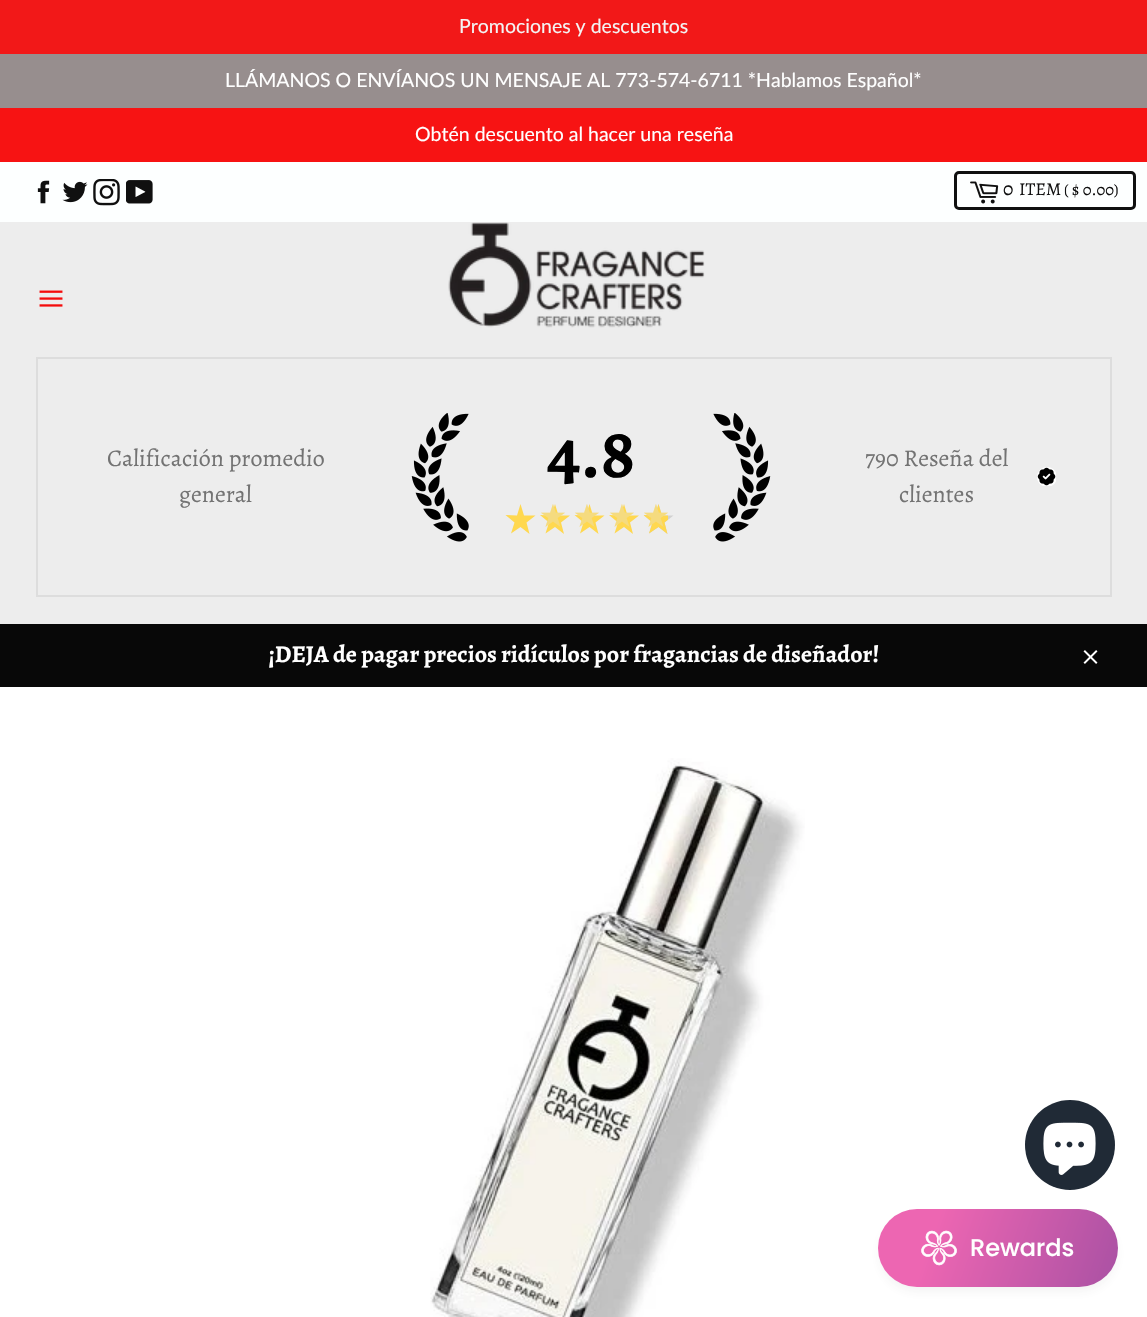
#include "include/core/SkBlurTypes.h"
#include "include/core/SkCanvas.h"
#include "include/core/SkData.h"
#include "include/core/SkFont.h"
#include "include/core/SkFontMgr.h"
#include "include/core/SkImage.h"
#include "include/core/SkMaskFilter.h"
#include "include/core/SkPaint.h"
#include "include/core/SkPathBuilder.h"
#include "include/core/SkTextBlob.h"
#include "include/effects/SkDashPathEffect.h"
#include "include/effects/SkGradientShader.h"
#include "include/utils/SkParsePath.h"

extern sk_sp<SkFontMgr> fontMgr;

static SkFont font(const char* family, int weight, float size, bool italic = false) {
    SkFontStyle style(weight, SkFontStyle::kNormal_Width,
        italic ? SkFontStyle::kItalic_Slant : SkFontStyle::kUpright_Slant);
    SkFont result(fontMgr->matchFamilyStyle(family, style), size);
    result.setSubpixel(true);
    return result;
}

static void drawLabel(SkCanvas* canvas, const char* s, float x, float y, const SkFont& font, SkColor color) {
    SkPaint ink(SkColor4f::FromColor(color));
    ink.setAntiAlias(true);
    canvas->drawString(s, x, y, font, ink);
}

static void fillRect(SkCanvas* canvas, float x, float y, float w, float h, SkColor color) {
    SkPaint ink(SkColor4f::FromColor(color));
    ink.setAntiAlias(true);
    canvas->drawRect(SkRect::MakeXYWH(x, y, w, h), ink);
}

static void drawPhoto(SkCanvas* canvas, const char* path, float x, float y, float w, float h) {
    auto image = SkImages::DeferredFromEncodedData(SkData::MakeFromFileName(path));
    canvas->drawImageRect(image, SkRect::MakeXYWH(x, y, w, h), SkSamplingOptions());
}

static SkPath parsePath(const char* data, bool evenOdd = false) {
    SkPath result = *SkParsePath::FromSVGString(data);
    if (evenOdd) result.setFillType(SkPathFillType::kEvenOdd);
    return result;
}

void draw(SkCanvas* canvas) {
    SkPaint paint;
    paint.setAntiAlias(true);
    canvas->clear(0xFFF21818);
    SkFont font1 = font("Lato", 400, 19.5f);
    drawLabel(canvas, "Promociones y descuentos", 459, 33, font1, 0xFFF4F4F4);
    fillRect(canvas, 0, 54, 1147, 54, 0xFF978E8E);
    drawLabel(canvas, "LLÁMANOS O ENVÍANOS UN MENSAJE AL 773-574-6711 *Hablamos Español*", 225, 87, font1, 0xFFFFFFFF);
    fillRect(canvas, 0, 108, 1147, 54, 0xFFF71313);
    drawLabel(canvas, "Obtén descuento al hacer una reseña", 415, 141, font1, 0xFFFFFFFF);
    fillRect(canvas, 0, 162, 1147, 60, 0xFFFDFFFF);
    drawPhoto(canvas, "assets/img1.png", 37, 180, 13, 24);
    drawPhoto(canvas, "assets/img2.png", 62, 181, 26, 22);
    drawPhoto(canvas, "assets/img3.png", 93, 179, 27, 27);
    drawPhoto(canvas, "assets/img4.png", 126, 180, 27, 24);
    paint.setStroke(true);
    paint.setStrokeWidth(3);
    paint.setColor(0xFF101010);
    canvas->drawRoundRect(SkRect::MakeXYWH(955.5f, 172.5f, 179, 36), 3.5f, 3.5f, paint);
    drawPhoto(canvas, "assets/img5.png", 970, 181, 29, 23);
    SkFont font2 = font("Alegreya", 400, 19.5f);
    drawLabel(canvas, "0", 1003, 195, font2, 0xFF101010);
    SkFont font3 = font("Alegreya", 400, 18);
    drawLabel(canvas, "ITEM", 1019, 195, font3, 0xFF101010);
    SkFont font4 = font("Alegreya", 400, 16.5f);
    drawLabel(canvas, "( $ 0.00)", 1064, 195, font4, 0xFF101010);
    fillRect(canvas, 0, 222, 1147, 402, 0xFFEDEDED);
    drawPhoto(canvas, "assets/img6.png", 39, 290, 24, 17);
    drawPhoto(canvas, "assets/img7.png", 448, 222, 257, 106);
    paint.setStrokeWidth(2);
    paint.setColor(0xFFDDDDDD);
    canvas->drawRect(SkRect::MakeXYWH(37, 358, 1074, 238), paint);
    SkFont font5 = font("Alegreya", 400, 24);
    drawLabel(canvas, "Calificación promedio", 107, 466, font5, 0xFF737373);
    drawLabel(canvas, "general", 179, 502, font5, 0xFF737373);
    drawPhoto(canvas, "assets/img8.png", 411, 413, 58, 129);
    SkFont font6 = font("Alegreya", 700, 72);
    drawLabel(canvas, "4.8", 547, 477, font6, 0xFF000000);
    paint.setStroke(false);
    paint.setColor(0xFFD1D1D1);
    canvas->drawPath(parsePath("M667.5 534L658.5 527L649 533.5L652.5 522.5L643.5 515L655 515.5L658.5 504L662 515.5H673.5L664.5 522.5Z"), paint);
    paint.setColor(0xFFFFD84F);
    canvas->drawPath(parsePath("M529.5 534L520.5 527L511 533.5L514.5 522.5L505.5 515L517 515.5L520.5 504L524 515.5H535.5L526.5 522.5Z"), paint);
    canvas->drawPath(parsePath("M564 534L555 527L545.5 533.5L549 522.5L540 515L551.5 515.5L555 504L558.5 515.5H570L561 522.5Z"), paint);
    SkFont font7 = font("DejaVu Sans", 700, 28);
    drawLabel(canvas, "★", 540, 526, font7, 0xFFF5DB7F);
    canvas->drawPath(parsePath("M598.5 534L589.5 527L580 533.5L583.5 522.5L574.5 515L586 515.5L589.5 504L593 515.5H604.5L595.5 522.5Z"), paint);
    drawLabel(canvas, "★", 574, 526, font7, 0xFFF5DB7F);
    canvas->drawPath(parsePath("M633 534L624 527L614.5 533.5L618 522.5L609 515L620.5 515.5L624 504L627.5 515.5H639L630 522.5Z"), paint);
    drawLabel(canvas, "★", 609, 526, font7, 0xFFF5DB7F);
    canvas->save();
    canvas->clipRect(SkRect::MakeXYWH(644, 504, 24, 30));
    canvas->drawPath(parsePath("M667.5 534L658.5 527L649 533.5L652.5 522.5L643.5 515L655 515.5L658.5 504L662 515.5H673.5L664.5 522.5Z"), paint);
    canvas->restore();
    drawLabel(canvas, "★", 643, 526, font7, 0xFFF5DB7F);
    drawPhoto(canvas, "assets/img9.png", 713, 413, 58, 129);
    drawLabel(canvas, "790 Reseña del", 865, 466, font5, 0xFF737373);
    drawLabel(canvas, "clientes", 899, 502, font5, 0xFF737373);
    drawPhoto(canvas, "assets/img10.png", 1037, 467, 19, 19);
    fillRect(canvas, 0, 624, 1147, 63, 0xFF080808);
    SkFont font8 = font("Alegreya", 700, 24);
    drawLabel(canvas, "¡DEJA de pagar precios ridículos por fragancias de diseñador!", 268, 662, font8, 0xFFFFFFFF);
    drawPhoto(canvas, "assets/img11.png", 1083, 650, 15, 14);
    fillRect(canvas, 0, 687, 1147, 630, 0xFFFFFFFF);
    drawPhoto(canvas, "assets/img12.png", 430, 758, 375, 559);
    paint.setColor(0xFF202A36);
    canvas->drawCircle(1070, 1145, 45, paint);
    drawPhoto(canvas, "assets/img13.png", 1043, 1122, 53, 53);
    paint.setColor(0x14444444);
    paint.setMaskFilter(SkMaskFilter::MakeBlur(kNormal_SkBlurStyle, 6));
    canvas->drawRoundRect(SkRect::MakeXYWH(881, 1218, 234, 72), 36, 36, paint);
    paint.setMaskFilter(nullptr);
    {
        const SkColor colors[] = {0xFFED66B2, 0xFF86469C};
        const float stops[] = {0.17f, 1};
        const SkPoint ends[] = {{879, 1206}, {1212, 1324}};
        paint.setShader(SkGradientShader::MakeLinear(ends, colors, stops, 2, SkTileMode::kClamp));
        paint.setAlpha(255);
    }
    canvas->drawRoundRect(SkRect::MakeXYWH(878, 1209, 240, 78), 39, 39, paint);
    drawPhoto(canvas, "assets/img14.png", 921, 1230, 36, 36);
    SkFont font9 = font("Poppins", 500, 24);
    drawLabel(canvas, "Rewards", 970, 1256, font9, 0xFFFFFFFF);
}
